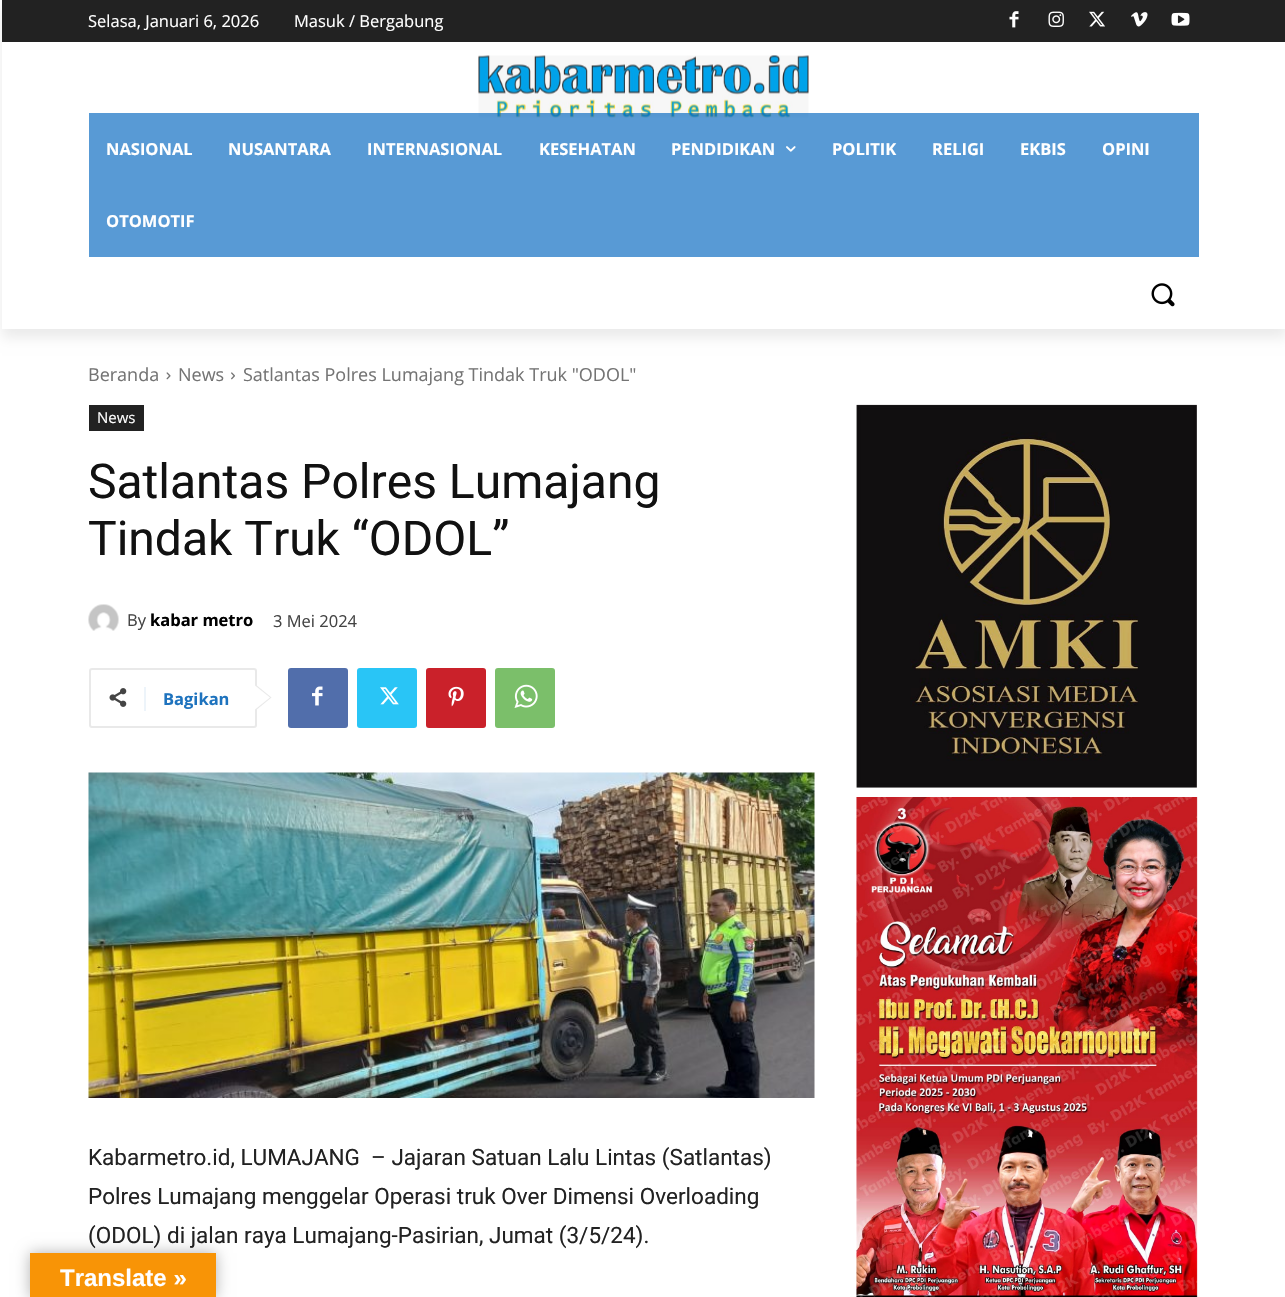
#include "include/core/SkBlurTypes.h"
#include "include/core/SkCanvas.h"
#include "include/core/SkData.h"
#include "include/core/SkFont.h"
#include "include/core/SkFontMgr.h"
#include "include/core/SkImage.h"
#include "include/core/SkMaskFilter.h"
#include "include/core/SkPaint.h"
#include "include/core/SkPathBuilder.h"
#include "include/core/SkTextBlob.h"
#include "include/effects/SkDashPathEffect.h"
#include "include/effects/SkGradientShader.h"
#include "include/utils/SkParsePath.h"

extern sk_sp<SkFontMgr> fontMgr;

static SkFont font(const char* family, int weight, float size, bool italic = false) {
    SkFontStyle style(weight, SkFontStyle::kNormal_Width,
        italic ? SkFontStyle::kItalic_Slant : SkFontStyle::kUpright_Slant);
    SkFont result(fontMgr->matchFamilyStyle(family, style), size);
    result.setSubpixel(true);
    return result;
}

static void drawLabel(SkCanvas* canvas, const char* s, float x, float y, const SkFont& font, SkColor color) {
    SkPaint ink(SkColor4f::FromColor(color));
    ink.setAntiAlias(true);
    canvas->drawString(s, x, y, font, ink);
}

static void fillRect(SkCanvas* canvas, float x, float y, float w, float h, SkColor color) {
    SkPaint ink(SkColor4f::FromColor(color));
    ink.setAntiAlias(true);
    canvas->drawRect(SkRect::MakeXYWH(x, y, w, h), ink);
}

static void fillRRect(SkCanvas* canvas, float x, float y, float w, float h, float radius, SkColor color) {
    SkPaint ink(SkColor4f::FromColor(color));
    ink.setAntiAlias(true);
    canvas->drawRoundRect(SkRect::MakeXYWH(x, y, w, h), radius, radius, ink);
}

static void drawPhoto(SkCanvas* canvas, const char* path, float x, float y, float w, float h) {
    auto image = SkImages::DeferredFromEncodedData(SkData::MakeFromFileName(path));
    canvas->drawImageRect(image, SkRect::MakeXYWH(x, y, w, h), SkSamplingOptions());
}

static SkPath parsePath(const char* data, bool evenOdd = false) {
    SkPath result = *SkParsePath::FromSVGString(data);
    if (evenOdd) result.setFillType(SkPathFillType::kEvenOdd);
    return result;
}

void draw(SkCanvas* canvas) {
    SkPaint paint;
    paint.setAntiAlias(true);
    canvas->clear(0xFFFFFFFF);
    fillRect(canvas, 2, 0, 1283, 42, 0xFF222222);
    drawPhoto(canvas, "assets/img1.png", 1009, 11, 10, 17);
    drawPhoto(canvas, "assets/img2.png", 1048, 11, 16, 16);
    drawPhoto(canvas, "assets/img3.png", 1089, 11, 16, 16);
    drawPhoto(canvas, "assets/img4.png", 1131, 12, 17, 15);
    drawPhoto(canvas, "assets/img5.png", 1171, 12, 19, 14);
    drawPhoto(canvas, "assets/img6.png", 478, 55, 331, 63);
    canvas->save();
    canvas->clipPath(parsePath("M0 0H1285V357H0ZM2 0H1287V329H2Z", true), true);
    paint.setColor(0x14000000);
    paint.setMaskFilter(SkMaskFilter::MakeBlur(kNormal_SkBlurStyle, 6));
    canvas->drawRect(SkRect::MakeXYWH(2, 9, 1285, 329), paint);
    paint.setMaskFilter(nullptr);
    canvas->restore();
    SkFont font1 = font("Open Sans", 400, 16.5f);
    drawLabel(canvas, "Selasa, Januari 6, 2026", 88, 27, font1, 0xFFFFFFFF);
    drawLabel(canvas, "Masuk / Bergabung", 294, 27, font1, 0xFFFFFFFF);
    fillRect(canvas, 89, 113, 1110, 144, 0xA80166BF);
    SkFont font2 = font("Open Sans", 700, 16.5f);
    drawLabel(canvas, "NASIONAL", 106, 155, font2, 0xFFFFFFFF);
    drawLabel(canvas, "NUSANTARA", 228, 155, font2, 0xFFFFFFFF);
    drawLabel(canvas, "INTERNASIONAL", 367, 155, font2, 0xFFFFFFFF);
    drawLabel(canvas, "KESEHATAN", 539, 155, font2, 0xFFFFFFFF);
    drawLabel(canvas, "PENDIDIKAN", 671, 155, font2, 0xFFFFFFFF);
    drawPhoto(canvas, "assets/img7.png", 786, 146, 10, 6);
    drawLabel(canvas, "POLITIK", 832, 155, font2, 0xFFFFFFFF);
    drawLabel(canvas, "RELIGI", 932, 155, font2, 0xFFFFFFFF);
    drawLabel(canvas, "EKBIS", 1020, 155, font2, 0xFFFFFFFF);
    drawLabel(canvas, "OPINI", 1102, 155, font2, 0xFFFFFFFF);
    drawLabel(canvas, "OTOMOTIF", 106, 227, font2, 0xFFFFFFFF);
    drawPhoto(canvas, "assets/img8.png", 1151, 283, 24, 24);
    SkFont font3 = font("Open Sans", 400, 18);
    drawLabel(canvas, "Beranda", 88, 381, font3, 0xFF747474);
    drawPhoto(canvas, "assets/img9.png", 166, 372, 5, 8);
    drawLabel(canvas, "News", 178, 381, font3, 0xFF747474);
    drawPhoto(canvas, "assets/img10.png", 231, 372, 4, 8);
    drawLabel(canvas, "Satlantas Polres Lumajang Tindak Truk \"ODOL\"", 243, 381, font3, 0xFF747474);
    fillRect(canvas, 89, 405, 55, 26, 0xFF222222);
    SkFont font4 = font("Open Sans", 400, 15);
    drawLabel(canvas, "News", 97, 423, font4, 0xFFFFFFFF);
    SkFont font5 = font("Roboto", 400, 48);
    drawLabel(canvas, "Satlantas Polres Lumajang", 88, 498, font5, 0xFF111111);
    drawLabel(canvas, "Tindak Truk “ODOL”", 88, 555, font5, 0xFF111111);
    drawPhoto(canvas, "assets/img11.png", 88, 604, 31, 27);
    drawLabel(canvas, "By", 127, 626, font1, 0xFF444444);
    drawLabel(canvas, "kabar metro", 150, 626, font2, 0xFF000000);
    drawLabel(canvas, "3 Mei 2024", 273, 627, font1, 0xFF444444);
    paint.setStroke(true);
    paint.setStrokeWidth(2);
    paint.setColor(0xFFE9E9E9);
    canvas->drawRoundRect(SkRect::MakeXYWH(90, 669, 166, 58), 2, 2, paint);
    paint.setStroke(false);
    canvas->drawPath(parsePath("M255 711V684L271.5 697.5Z"), paint);
    drawPhoto(canvas, "assets/img12.png", 109, 688, 18, 19);
    fillRect(canvas, 144, 687, 2, 24, 0xFFEDF4FA);
    drawLabel(canvas, "Bagikan", 163, 705, font2, 0xFF1E73BE);
    paint.setColor(0xFFFFFFFF);
    canvas->drawPath(parsePath("M255 709.5V685.5L270 697.5Z"), paint);
    fillRRect(canvas, 288, 668, 60, 60, 3, 0xFF516EAB);
    drawPhoto(canvas, "assets/img13.png", 312, 686, 11, 20);
    fillRRect(canvas, 357, 668, 60, 60, 3, 0xFF29C5F6);
    drawPhoto(canvas, "assets/img14.png", 380, 687, 19, 18);
    fillRRect(canvas, 426, 668, 60, 60, 3, 0xFFCA212A);
    drawPhoto(canvas, "assets/img15.png", 448, 686, 16, 21);
    fillRRect(canvas, 495, 668, 60, 60, 3, 0xFF7BBF6A);
    drawPhoto(canvas, "assets/img16.png", 514, 684, 24, 24);
    drawPhoto(canvas, "assets/img17.png", 88, 772, 727, 326);
    SkFont font6 = font("Roboto", 400, 22.5f);
    drawLabel(canvas, "Kabarmetro.id, LUMAJANG  – Jajaran Satuan Lalu Lintas (Satlantas)", 88, 1165, font6, 0xFF222222);
    drawLabel(canvas, "Polres Lumajang menggelar Operasi truk Over Dimensi Overloading", 88, 1204, font6, 0xFF222222);
    drawLabel(canvas, "(ODOL) di jalan raya Lumajang-Pasirian, Jumat (3/5/24).", 88, 1243, font6, 0xFF222222);
    drawPhoto(canvas, "assets/img18.png", 856, 404, 341, 384);
    drawPhoto(canvas, "assets/img19.png", 856, 797, 342, 500);
    paint.setColor(0x4D000000);
    paint.setMaskFilter(SkMaskFilter::MakeBlur(kNormal_SkBlurStyle, 7));
    canvas->drawRect(SkRect::MakeXYWH(30, 1253, 186, 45), paint);
    paint.setMaskFilter(nullptr);
    fillRect(canvas, 30, 1253, 186, 44, 0xFFF89406);
    SkFont font7 = font("Liberation Sans", 700, 24);
    drawLabel(canvas, "Translate »", 60, 1286, font7, 0xFFFFFFFF);
}
